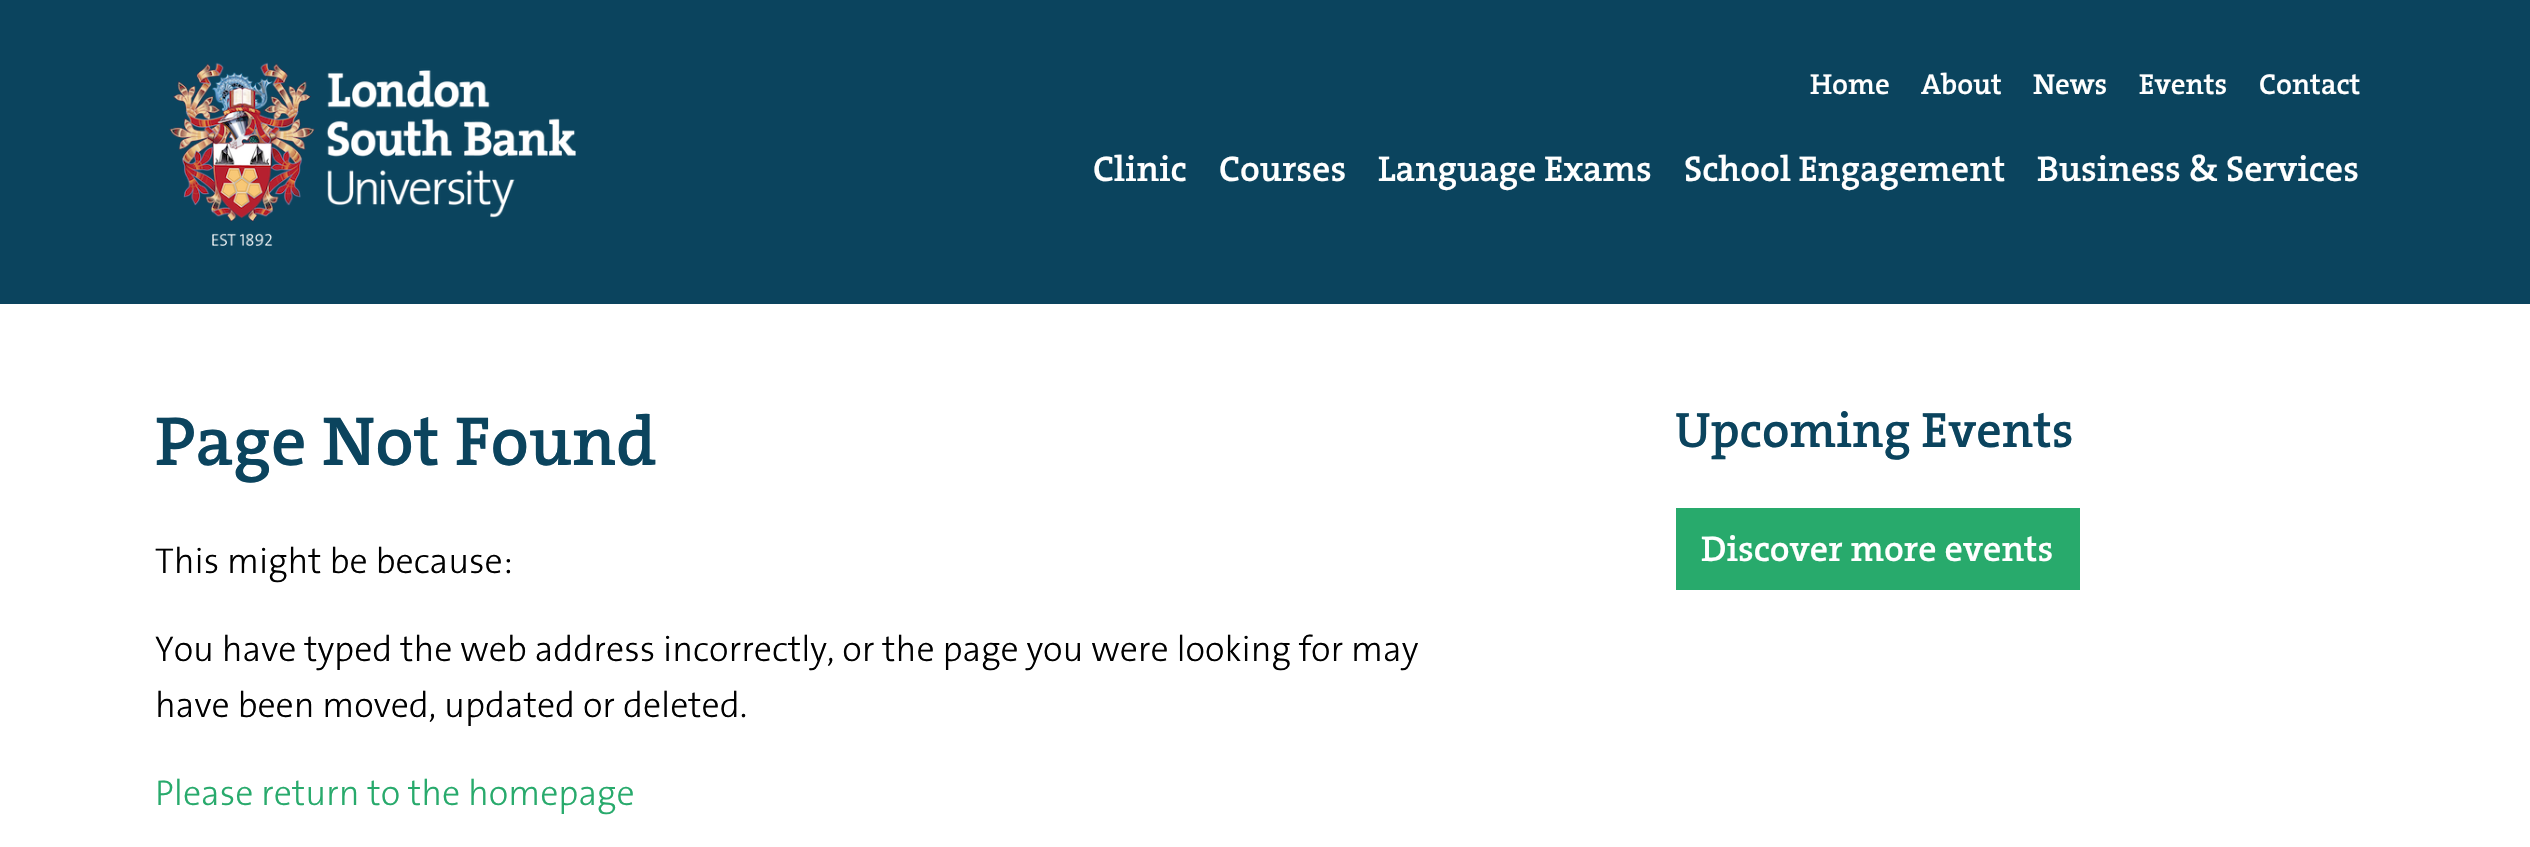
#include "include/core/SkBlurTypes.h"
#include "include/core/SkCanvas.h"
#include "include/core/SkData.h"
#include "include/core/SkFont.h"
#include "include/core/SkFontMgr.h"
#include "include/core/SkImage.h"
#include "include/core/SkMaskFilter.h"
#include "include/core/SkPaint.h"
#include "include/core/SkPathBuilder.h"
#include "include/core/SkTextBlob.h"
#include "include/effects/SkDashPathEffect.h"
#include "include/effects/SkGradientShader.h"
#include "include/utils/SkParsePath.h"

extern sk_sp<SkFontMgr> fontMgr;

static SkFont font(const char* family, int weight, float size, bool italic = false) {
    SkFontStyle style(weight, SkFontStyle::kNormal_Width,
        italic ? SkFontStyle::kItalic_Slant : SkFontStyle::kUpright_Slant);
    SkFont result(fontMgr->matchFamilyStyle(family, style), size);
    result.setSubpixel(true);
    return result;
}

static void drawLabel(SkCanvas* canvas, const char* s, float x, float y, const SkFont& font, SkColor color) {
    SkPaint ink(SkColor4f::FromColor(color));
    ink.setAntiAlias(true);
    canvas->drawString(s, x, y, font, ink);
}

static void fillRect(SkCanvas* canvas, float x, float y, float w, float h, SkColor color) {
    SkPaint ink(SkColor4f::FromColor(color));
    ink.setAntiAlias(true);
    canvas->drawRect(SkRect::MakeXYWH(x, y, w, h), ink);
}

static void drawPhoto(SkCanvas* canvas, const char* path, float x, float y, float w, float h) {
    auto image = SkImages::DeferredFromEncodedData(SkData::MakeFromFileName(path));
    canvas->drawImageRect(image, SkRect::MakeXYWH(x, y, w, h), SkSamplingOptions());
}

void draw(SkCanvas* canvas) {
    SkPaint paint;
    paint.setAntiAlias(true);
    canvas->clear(0xFFFFFFFF);
    fillRect(canvas, 0, 0, 2530, 304, 0xFF0B445E);
    drawPhoto(canvas, "assets/img1.png", 169, 62, 407, 184);
    SkFont font1 = font("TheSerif", 600, 29);
    drawLabel(canvas, "Home", 1810, 94, font1, 0xFFFFFFFF);
    drawLabel(canvas, "About", 1921, 94, font1, 0xFFFFFFFF);
    drawLabel(canvas, "News", 2033, 94, font1, 0xFFFFFFFF);
    drawLabel(canvas, "Events", 2139, 94, font1, 0xFFFFFFFF);
    drawLabel(canvas, "Contact", 2259, 94, font1, 0xFFFFFFFF);
    SkFont font2 = font("TheSerif", 600, 36);
    drawLabel(canvas, "Clinic", 1093, 181, font2, 0xFFFFFFFF);
    drawLabel(canvas, "Courses", 1219, 181, font2, 0xFFFFFFFF);
    drawLabel(canvas, "Language Exams", 1378, 181, font2, 0xFFFFFFFF);
    drawLabel(canvas, "School Engagement", 1684, 181, font2, 0xFFFFFFFF);
    drawLabel(canvas, "Business & Services", 2037, 181, font2, 0xFFFFFFFF);
    SkFont font3 = font("TheSerif", 600, 70);
    drawLabel(canvas, "Page Not Found", 155, 465, font3, 0xFF0B445E);
    SkFont font4 = font("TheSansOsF", 300, 36);
    drawLabel(canvas, "This might be because:", 155, 573, font4, 0xFF000000);
    drawLabel(canvas, "You have typed the web address incorrectly, or the page you were looking for may", 155, 661, font4, 0xFF000000);
    drawLabel(canvas, "have been moved, updated or deleted.", 155, 717, font4, 0xFF000000);
    drawLabel(canvas, "Please return to the homepage", 155, 805, font4, 0xFF28AA6C);
    SkFont font5 = font("TheSerif", 600, 50);
    drawLabel(canvas, "Upcoming Events", 1675, 447, font5, 0xFF0B445E);
    fillRect(canvas, 1676, 508, 404, 82, 0xFF28AA6C);
    drawLabel(canvas, "Discover more events", 1701, 561, font2, 0xFFFFFFFF);
}
